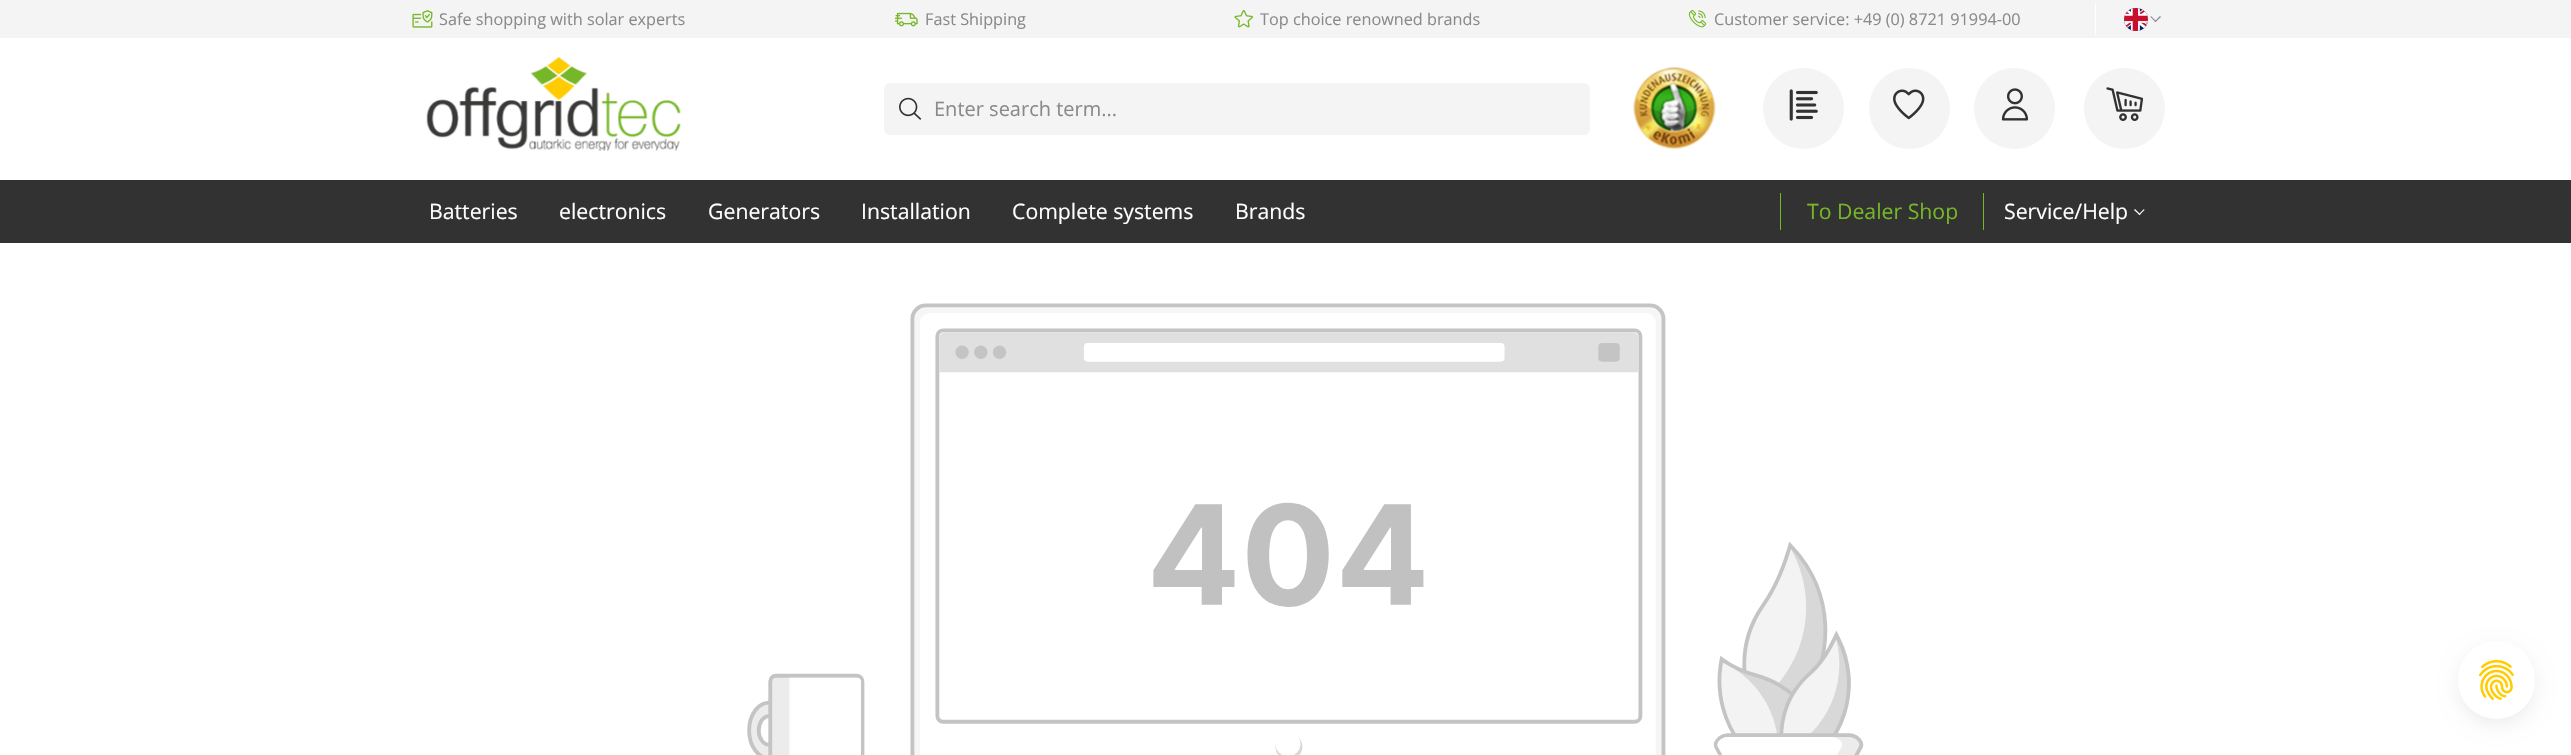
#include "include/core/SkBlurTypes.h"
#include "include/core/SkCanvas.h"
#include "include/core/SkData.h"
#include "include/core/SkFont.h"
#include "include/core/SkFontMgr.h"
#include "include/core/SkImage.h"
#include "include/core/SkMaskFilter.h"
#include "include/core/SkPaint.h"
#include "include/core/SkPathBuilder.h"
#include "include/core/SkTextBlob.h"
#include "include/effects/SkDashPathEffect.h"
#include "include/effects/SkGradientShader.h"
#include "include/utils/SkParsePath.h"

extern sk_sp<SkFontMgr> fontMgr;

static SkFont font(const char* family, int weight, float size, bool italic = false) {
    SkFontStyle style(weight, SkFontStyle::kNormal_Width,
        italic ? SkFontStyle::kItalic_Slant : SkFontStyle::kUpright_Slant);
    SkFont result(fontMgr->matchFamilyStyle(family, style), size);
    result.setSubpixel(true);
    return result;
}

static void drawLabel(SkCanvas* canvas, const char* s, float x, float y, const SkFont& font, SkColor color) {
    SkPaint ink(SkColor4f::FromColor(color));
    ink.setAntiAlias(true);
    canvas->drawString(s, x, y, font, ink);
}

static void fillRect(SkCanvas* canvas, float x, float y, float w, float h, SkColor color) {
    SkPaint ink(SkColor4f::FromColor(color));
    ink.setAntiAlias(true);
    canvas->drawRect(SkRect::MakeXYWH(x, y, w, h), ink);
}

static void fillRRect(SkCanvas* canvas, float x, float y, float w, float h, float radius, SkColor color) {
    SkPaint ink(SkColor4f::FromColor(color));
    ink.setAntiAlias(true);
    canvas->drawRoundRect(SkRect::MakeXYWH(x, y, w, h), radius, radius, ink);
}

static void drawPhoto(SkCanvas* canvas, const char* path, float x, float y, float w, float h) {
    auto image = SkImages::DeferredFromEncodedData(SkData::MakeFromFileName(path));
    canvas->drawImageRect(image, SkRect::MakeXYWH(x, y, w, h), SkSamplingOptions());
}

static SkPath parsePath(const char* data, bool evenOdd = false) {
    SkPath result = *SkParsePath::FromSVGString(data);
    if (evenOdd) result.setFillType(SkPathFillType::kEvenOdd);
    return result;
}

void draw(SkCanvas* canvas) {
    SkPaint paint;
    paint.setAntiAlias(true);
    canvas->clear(0xFFFFFFFF);
    fillRect(canvas, 0, 0, 2571, 38, 0xFFF4F4F4);
    drawPhoto(canvas, "assets/img1.png", 412, 10, 21, 18);
    SkFont font1 = font("Open Sans", 400, 16.25f);
    drawLabel(canvas, "Safe shopping with solar experts", 439, 25, font1, 0xFF8A8A8A);
    drawPhoto(canvas, "assets/img2.png", 894, 12, 24, 15);
    drawLabel(canvas, "Fast Shipping", 925, 25, font1, 0xFF8A8A8A);
    drawPhoto(canvas, "assets/img3.png", 1234, 10, 19, 18);
    drawLabel(canvas, "Top choice renowned brands", 1260, 25, font1, 0xFF8A8A8A);
    drawPhoto(canvas, "assets/img4.png", 1688, 10, 19, 18);
    drawLabel(canvas, "Customer service: +49 (0) 8721 91994-00", 1714, 25, font1, 0xFF8A8A8A);
    fillRect(canvas, 2095, 4, 1, 31, 0xFFFFFFFF);
    drawPhoto(canvas, "assets/img5.png", 2124, 8, 24, 23);
    paint.setColor(0xFF8A8A8A);
    canvas->drawPath(parsePath("M2160 16L2161 17L2155.5 22L2154.5 21.5Z"), paint);
    canvas->drawPath(parsePath("M2151 16L2156.5 21.5L2155.5 22L2150.5 17Z"), paint);
    drawPhoto(canvas, "assets/img6.png", 426, 57, 255, 94);
    fillRRect(canvas, 884, 83, 706, 52, 6, 0xFFF4F4F4);
    drawPhoto(canvas, "assets/img7.png", 899, 97, 23, 23);
    SkFont font2 = font("Open Sans", 400, 20);
    drawLabel(canvas, "Enter search term...", 934, 116, font2, 0xFF8A8A8A);
    drawPhoto(canvas, "assets/img8.png", 1633, 67, 83, 83);
    paint.setColor(0xFFF4F4F4);
    canvas->drawCircle(1803.5f, 108.5f, 40.5f, paint);
    drawPhoto(canvas, "assets/img9.png", 1789, 89, 29, 32);
    canvas->drawCircle(1909.5f, 108.5f, 40.5f, paint);
    drawPhoto(canvas, "assets/img10.png", 1893, 89, 32, 31);
    canvas->drawCircle(2014.5f, 108.5f, 40.5f, paint);
    drawPhoto(canvas, "assets/img11.png", 2001, 88, 28, 33);
    canvas->drawCircle(2124.5f, 108.5f, 40.5f, paint);
    drawPhoto(canvas, "assets/img12.png", 2106, 87, 38, 34);
    fillRect(canvas, 0, 180, 2571, 63, 0xFF323232);
    SkFont font3 = font("Open Sans", 400, 21.25f);
    drawLabel(canvas, "Batteries", 429, 219, font3, 0xFFFFFFFF);
    drawLabel(canvas, "electronics", 559, 219, font3, 0xFFFFFFFF);
    drawLabel(canvas, "Generators", 708, 219, font3, 0xFFFFFFFF);
    drawLabel(canvas, "Installation", 861, 219, font3, 0xFFFFFFFF);
    drawLabel(canvas, "Complete systems", 1012, 219, font3, 0xFFFFFFFF);
    drawLabel(canvas, "Brands", 1235, 219, font3, 0xFFFFFFFF);
    fillRect(canvas, 1983, 193, 1, 37, 0xFF75B726);
    fillRect(canvas, 1780, 193, 1, 37, 0xFF75B726);
    drawLabel(canvas, "To Dealer Shop", 1807, 219, font3, 0xFF75B726);
    drawLabel(canvas, "Service/Help", 2004, 219, font3, 0xFFFFFFFF);
    paint.setColor(0xFFFFFFFF);
    canvas->drawPath(parsePath("M2144 209L2144.5 210L2139.5 215L2138.5 214.5Z"), paint);
    canvas->drawPath(parsePath("M2135 209L2140.5 214.5L2139.5 215L2134 210Z"), paint);
    drawPhoto(canvas, "assets/img13.png", 747, 303, 1117, 452);
    paint.setColor(0x14000000);
    paint.setMaskFilter(SkMaskFilter::MakeBlur(kNormal_SkBlurStyle, 9.5f));
    canvas->drawRoundRect(SkRect::MakeXYWH(2459, 649, 75, 75), 37.5f, 37.5f, paint);
    paint.setMaskFilter(nullptr);
    fillRRect(canvas, 2458, 641, 77, 78, 38, 0xFFFFFFFF);
    drawPhoto(canvas, "assets/img14.png", 2479, 660, 35, 40);
}
